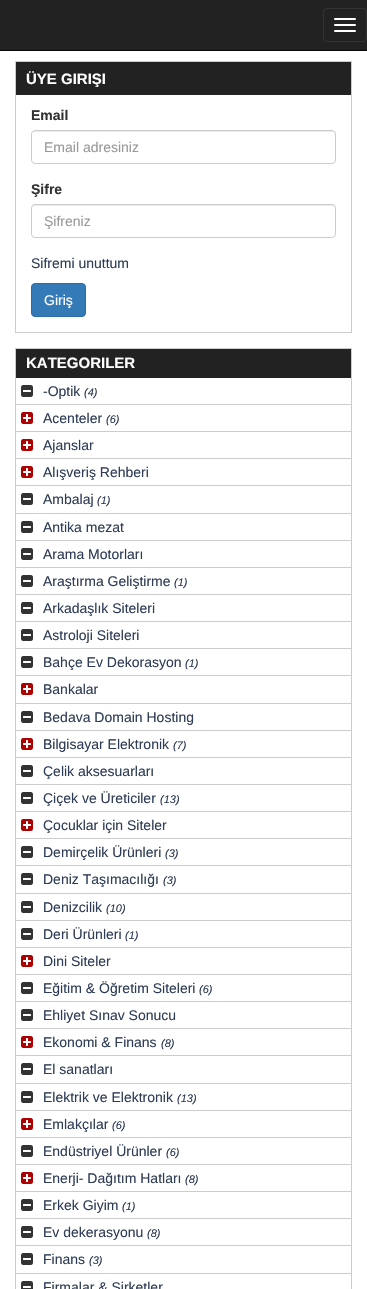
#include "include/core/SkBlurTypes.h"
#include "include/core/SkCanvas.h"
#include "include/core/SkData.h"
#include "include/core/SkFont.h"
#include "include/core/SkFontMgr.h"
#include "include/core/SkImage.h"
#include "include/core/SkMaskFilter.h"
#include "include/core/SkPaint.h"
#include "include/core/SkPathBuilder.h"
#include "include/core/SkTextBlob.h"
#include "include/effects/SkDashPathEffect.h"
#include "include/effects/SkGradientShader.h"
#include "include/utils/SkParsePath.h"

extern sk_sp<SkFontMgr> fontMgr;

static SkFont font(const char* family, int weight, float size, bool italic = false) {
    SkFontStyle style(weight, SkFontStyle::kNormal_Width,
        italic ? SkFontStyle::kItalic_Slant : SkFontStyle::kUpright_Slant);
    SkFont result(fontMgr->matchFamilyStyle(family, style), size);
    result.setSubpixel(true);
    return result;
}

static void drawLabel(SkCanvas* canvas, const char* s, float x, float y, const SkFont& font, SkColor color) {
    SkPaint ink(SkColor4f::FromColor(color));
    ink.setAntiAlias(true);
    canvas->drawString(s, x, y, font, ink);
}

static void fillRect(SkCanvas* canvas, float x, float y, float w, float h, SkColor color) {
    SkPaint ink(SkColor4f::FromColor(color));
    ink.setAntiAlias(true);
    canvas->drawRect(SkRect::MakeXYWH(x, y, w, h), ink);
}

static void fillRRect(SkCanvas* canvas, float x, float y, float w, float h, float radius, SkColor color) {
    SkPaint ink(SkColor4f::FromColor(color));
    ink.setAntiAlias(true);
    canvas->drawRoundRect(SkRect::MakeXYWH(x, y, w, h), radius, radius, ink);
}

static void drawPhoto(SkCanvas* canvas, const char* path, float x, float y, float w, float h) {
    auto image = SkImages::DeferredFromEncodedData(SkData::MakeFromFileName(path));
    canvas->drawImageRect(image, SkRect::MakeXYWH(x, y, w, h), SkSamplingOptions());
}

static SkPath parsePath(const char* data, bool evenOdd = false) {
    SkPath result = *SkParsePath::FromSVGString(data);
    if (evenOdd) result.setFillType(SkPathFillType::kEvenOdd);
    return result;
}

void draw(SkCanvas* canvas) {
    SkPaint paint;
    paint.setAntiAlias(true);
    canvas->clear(0xFFFFFFFF);
    fillRect(canvas, 0, 0, 367, 50, 0xFF222222);
    fillRect(canvas, 0, 50, 367, 1, 0xFF080808);
    paint.setStroke(true);
    paint.setStrokeWidth(1);
    paint.setColor(0xFF333333);
    canvas->drawRoundRect(SkRect::MakeXYWH(323.5f, 8.5f, 43, 33), 3.5f, 3.5f, paint);
    fillRRect(canvas, 334, 18, 22, 2, 1, 0xFFFFFFFF);
    fillRRect(canvas, 334, 24, 22, 2, 1, 0xFFFFFFFF);
    fillRRect(canvas, 334, 30, 22, 2, 1, 0xFFFFFFFF);
    paint.setColor(0xFFCCCCCC);
    canvas->drawRect(SkRect::MakeXYWH(15.5f, 61.5f, 336, 271), paint);
    fillRect(canvas, 16, 62, 335, 33, 0xFF222222);
    SkFont font1 = font("Liberation Sans", 700, 15);
    drawLabel(canvas, "ÜYE GIRIŞI", 26, 84, font1, 0xFFFFFFFF);
    SkFont font2 = font("Liberation Sans", 700, 14);
    drawLabel(canvas, "Email", 31, 120, font2, 0xFF333333);
    paint.setStroke(false);
    paint.setColor(0xFFECECEC);
    canvas->drawPath(parsePath("M35 132H332C334 132 335 133 335 135L334 132L333 131H35C33 131 32 133 32 135C32 133 33 132 35 132Z"), paint);
    paint.setStroke(true);
    paint.setColor(0xFFCCCCCC);
    canvas->drawRoundRect(SkRect::MakeXYWH(31.5f, 130.5f, 304, 33), 3.5f, 3.5f, paint);
    SkFont font3 = font("Liberation Sans", 400, 14);
    drawLabel(canvas, "Email adresiniz", 44, 152, font3, 0xFF999999);
    drawLabel(canvas, "Şifre", 31, 194, font2, 0xFF333333);
    paint.setStroke(false);
    paint.setColor(0xFFECECEC);
    canvas->drawPath(parsePath("M35 206H332C334 206 335 207 335 209L334 206L333 205H35C33 205 32 207 32 209C32 207 33 206 35 206Z"), paint);
    paint.setStroke(true);
    paint.setColor(0xFFCCCCCC);
    canvas->drawRoundRect(SkRect::MakeXYWH(31.5f, 204.5f, 304, 33), 3.5f, 3.5f, paint);
    drawLabel(canvas, "Şifreniz", 44, 226, font3, 0xFF999999);
    drawLabel(canvas, "Sifremi unuttum", 31, 268, font3, 0xFF2E3C56);
    paint.setStroke(false);
    paint.setColor(0xFF337AB7);
    canvas->drawRoundRect(SkRect::MakeXYWH(31.5f, 283.5f, 54, 33), 3.5f, 3.5f, paint);
    paint.setStroke(true);
    paint.setColor(0xFF2E6DA4);
    canvas->drawRoundRect(SkRect::MakeXYWH(31.5f, 283.5f, 54, 33), 3.5f, 3.5f, paint);
    drawLabel(canvas, "Giriş", 44, 305, font3, 0xFFFFFFFF);
    paint.setColor(0xFFCCCCCC);
    canvas->drawRect(SkRect::MakeXYWH(15.5f, 348.5f, 336, 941), paint);
    fillRect(canvas, 16, 349, 335, 29, 0xFF222222);
    drawLabel(canvas, "KATEGORILER", 26, 368, font1, 0xFFFFFFFF);
    fillRect(canvas, 16, 404, 335, 1, 0xFFCCCCCC);
    drawPhoto(canvas, "assets/img1.png", 21, 385, 12, 12);
    drawLabel(canvas, "-Optik", 43, 396, font3, 0xFF2E3C56);
    SkFont font4 = font("Liberation Sans", 400, 11, true);
    drawLabel(canvas, "(4)", 84, 396, font4, 0xFF2E3C56);
    fillRect(canvas, 16, 431, 335, 1, 0xFFCCCCCC);
    drawPhoto(canvas, "assets/img2.png", 21, 412, 12, 12);
    drawLabel(canvas, "Acenteler", 43, 423, font3, 0xFF2E3C56);
    drawLabel(canvas, "(6)", 106, 423, font4, 0xFF2E3C56);
    fillRect(canvas, 16, 458, 335, 1, 0xFFCCCCCC);
    drawPhoto(canvas, "assets/img2.png", 21, 439, 12, 12);
    drawLabel(canvas, "Ajanslar", 43, 450, font3, 0xFF2E3C56);
    fillRect(canvas, 16, 485, 335, 1, 0xFFCCCCCC);
    drawPhoto(canvas, "assets/img2.png", 21, 466, 12, 12);
    drawLabel(canvas, "Alışveriş Rehberi", 43, 477, font3, 0xFF2E3C56);
    fillRect(canvas, 16, 513, 335, 1, 0xFFCCCCCC);
    drawPhoto(canvas, "assets/img1.png", 21, 493, 12, 12);
    drawLabel(canvas, "Ambalaj", 43, 504, font3, 0xFF2E3C56);
    drawLabel(canvas, "(1)", 97, 504, font4, 0xFF2E3C56);
    fillRect(canvas, 16, 540, 335, 1, 0xFFCCCCCC);
    drawPhoto(canvas, "assets/img1.png", 21, 521, 12, 12);
    drawLabel(canvas, "Antika mezat", 43, 532, font3, 0xFF2E3C56);
    fillRect(canvas, 16, 567, 335, 1, 0xFFCCCCCC);
    drawPhoto(canvas, "assets/img1.png", 21, 548, 12, 12);
    drawLabel(canvas, "Arama Motorları", 43, 559, font3, 0xFF2E3C56);
    fillRect(canvas, 16, 594, 335, 1, 0xFFCCCCCC);
    drawPhoto(canvas, "assets/img1.png", 21, 575, 12, 12);
    drawLabel(canvas, "Araştırma Geliştirme", 43, 586, font3, 0xFF2E3C56);
    drawLabel(canvas, "(1)", 174, 586, font4, 0xFF2E3C56);
    fillRect(canvas, 16, 621, 335, 1, 0xFFCCCCCC);
    drawPhoto(canvas, "assets/img1.png", 21, 602, 12, 12);
    drawLabel(canvas, "Arkadaşlık Siteleri", 43, 613, font3, 0xFF2E3C56);
    fillRect(canvas, 16, 648, 335, 1, 0xFFCCCCCC);
    drawPhoto(canvas, "assets/img1.png", 21, 629, 12, 12);
    drawLabel(canvas, "Astroloji Siteleri", 43, 640, font3, 0xFF2E3C56);
    fillRect(canvas, 16, 675, 335, 1, 0xFFCCCCCC);
    drawPhoto(canvas, "assets/img1.png", 21, 656, 12, 12);
    drawLabel(canvas, "Bahçe Ev Dekorasyon", 43, 667, font3, 0xFF2E3C56);
    drawLabel(canvas, "(1)", 185, 667, font4, 0xFF2E3C56);
    fillRect(canvas, 16, 703, 335, 1, 0xFFCCCCCC);
    drawPhoto(canvas, "assets/img2.png", 21, 683, 12, 12);
    drawLabel(canvas, "Bankalar", 43, 694, font3, 0xFF2E3C56);
    fillRect(canvas, 16, 730, 335, 1, 0xFFCCCCCC);
    drawPhoto(canvas, "assets/img1.png", 21, 711, 12, 12);
    drawLabel(canvas, "Bedava Domain Hosting", 43, 722, font3, 0xFF2E3C56);
    fillRect(canvas, 16, 757, 335, 1, 0xFFCCCCCC);
    drawPhoto(canvas, "assets/img2.png", 21, 738, 12, 12);
    drawLabel(canvas, "Bilgisayar Elektronik", 43, 749, font3, 0xFF2E3C56);
    drawLabel(canvas, "(7)", 173, 749, font4, 0xFF2E3C56);
    fillRect(canvas, 16, 784, 335, 1, 0xFFCCCCCC);
    drawPhoto(canvas, "assets/img1.png", 21, 765, 12, 12);
    drawLabel(canvas, "Çelik aksesuarları", 43, 776, font3, 0xFF2E3C56);
    fillRect(canvas, 16, 811, 335, 1, 0xFFCCCCCC);
    drawPhoto(canvas, "assets/img1.png", 21, 792, 12, 12);
    drawLabel(canvas, "Çiçek ve Üreticiler", 43, 803, font3, 0xFF2E3C56);
    drawLabel(canvas, "(13)", 160, 803, font4, 0xFF2E3C56);
    fillRect(canvas, 16, 838, 335, 1, 0xFFCCCCCC);
    drawPhoto(canvas, "assets/img2.png", 21, 819, 12, 12);
    drawLabel(canvas, "Çocuklar için Siteler", 43, 830, font3, 0xFF2E3C56);
    fillRect(canvas, 16, 865, 335, 1, 0xFFCCCCCC);
    drawPhoto(canvas, "assets/img1.png", 21, 846, 12, 12);
    drawLabel(canvas, "Demirçelik Ürünleri", 43, 857, font3, 0xFF2E3C56);
    drawLabel(canvas, "(3)", 165, 857, font4, 0xFF2E3C56);
    fillRect(canvas, 16, 893, 335, 1, 0xFFCCCCCC);
    drawPhoto(canvas, "assets/img1.png", 21, 873, 12, 12);
    drawLabel(canvas, "Deniz Taşımacılığı", 43, 884, font3, 0xFF2E3C56);
    drawLabel(canvas, "(3)", 163, 884, font4, 0xFF2E3C56);
    fillRect(canvas, 16, 920, 335, 1, 0xFFCCCCCC);
    drawPhoto(canvas, "assets/img1.png", 21, 901, 12, 12);
    drawLabel(canvas, "Denizcilik", 43, 912, font3, 0xFF2E3C56);
    drawLabel(canvas, "(10)", 106, 912, font4, 0xFF2E3C56);
    fillRect(canvas, 16, 947, 335, 1, 0xFFCCCCCC);
    drawPhoto(canvas, "assets/img1.png", 21, 928, 12, 12);
    drawLabel(canvas, "Deri Ürünleri", 43, 939, font3, 0xFF2E3C56);
    drawLabel(canvas, "(1)", 125, 939, font4, 0xFF2E3C56);
    fillRect(canvas, 16, 974, 335, 1, 0xFFCCCCCC);
    drawPhoto(canvas, "assets/img2.png", 21, 955, 12, 12);
    drawLabel(canvas, "Dini Siteler", 43, 966, font3, 0xFF2E3C56);
    fillRect(canvas, 16, 1001, 335, 1, 0xFFCCCCCC);
    drawPhoto(canvas, "assets/img1.png", 21, 982, 12, 12);
    drawLabel(canvas, "Eğitim & Öğretim Siteleri", 43, 993, font3, 0xFF2E3C56);
    drawLabel(canvas, "(6)", 199, 993, font4, 0xFF2E3C56);
    fillRect(canvas, 16, 1028, 335, 1, 0xFFCCCCCC);
    drawPhoto(canvas, "assets/img1.png", 21, 1009, 12, 12);
    drawLabel(canvas, "Ehliyet Sınav Sonucu", 43, 1020, font3, 0xFF2E3C56);
    fillRect(canvas, 16, 1055, 335, 1, 0xFFCCCCCC);
    drawPhoto(canvas, "assets/img2.png", 21, 1036, 12, 12);
    drawLabel(canvas, "Ekonomi & Finans", 43, 1047, font3, 0xFF2E3C56);
    drawLabel(canvas, "(8)", 161, 1047, font4, 0xFF2E3C56);
    fillRect(canvas, 16, 1083, 335, 1, 0xFFCCCCCC);
    drawPhoto(canvas, "assets/img1.png", 21, 1063, 12, 12);
    drawLabel(canvas, "El sanatları", 43, 1074, font3, 0xFF2E3C56);
    fillRect(canvas, 16, 1110, 335, 1, 0xFFCCCCCC);
    drawPhoto(canvas, "assets/img1.png", 21, 1091, 12, 12);
    drawLabel(canvas, "Elektrik ve Elektronik", 43, 1102, font3, 0xFF2E3C56);
    drawLabel(canvas, "(13)", 177, 1102, font4, 0xFF2E3C56);
    fillRect(canvas, 16, 1137, 335, 1, 0xFFCCCCCC);
    drawPhoto(canvas, "assets/img2.png", 21, 1118, 12, 12);
    drawLabel(canvas, "Emlakçılar", 43, 1129, font3, 0xFF2E3C56);
    drawLabel(canvas, "(6)", 112, 1129, font4, 0xFF2E3C56);
    fillRect(canvas, 16, 1164, 335, 1, 0xFFCCCCCC);
    drawPhoto(canvas, "assets/img1.png", 21, 1145, 12, 12);
    drawLabel(canvas, "Endüstriyel Ürünler", 43, 1156, font3, 0xFF2E3C56);
    drawLabel(canvas, "(6)", 166, 1156, font4, 0xFF2E3C56);
    fillRect(canvas, 16, 1191, 335, 1, 0xFFCCCCCC);
    drawPhoto(canvas, "assets/img2.png", 21, 1172, 12, 12);
    drawLabel(canvas, "Enerji- Dağıtım Hatları", 43, 1183, font3, 0xFF2E3C56);
    drawLabel(canvas, "(8)", 185, 1183, font4, 0xFF2E3C56);
    fillRect(canvas, 16, 1218, 335, 1, 0xFFCCCCCC);
    drawPhoto(canvas, "assets/img1.png", 21, 1199, 12, 12);
    drawLabel(canvas, "Erkek Giyim", 43, 1210, font3, 0xFF2E3C56);
    drawLabel(canvas, "(1)", 122, 1210, font4, 0xFF2E3C56);
    fillRect(canvas, 16, 1245, 335, 1, 0xFFCCCCCC);
    drawPhoto(canvas, "assets/img1.png", 21, 1226, 12, 12);
    drawLabel(canvas, "Ev dekerasyonu", 43, 1237, font3, 0xFF2E3C56);
    drawLabel(canvas, "(8)", 147, 1237, font4, 0xFF2E3C56);
    fillRect(canvas, 16, 1273, 335, 1, 0xFFCCCCCC);
    drawPhoto(canvas, "assets/img1.png", 21, 1253, 12, 12);
    drawLabel(canvas, "Finans", 43, 1264, font3, 0xFF2E3C56);
    drawLabel(canvas, "(3)", 89, 1264, font4, 0xFF2E3C56);
    drawPhoto(canvas, "assets/img3.png", 21, 1281, 12, 8);
    drawLabel(canvas, "Firmalar & Şirketler", 43, 1292, font3, 0xFF2E3C56);
}
